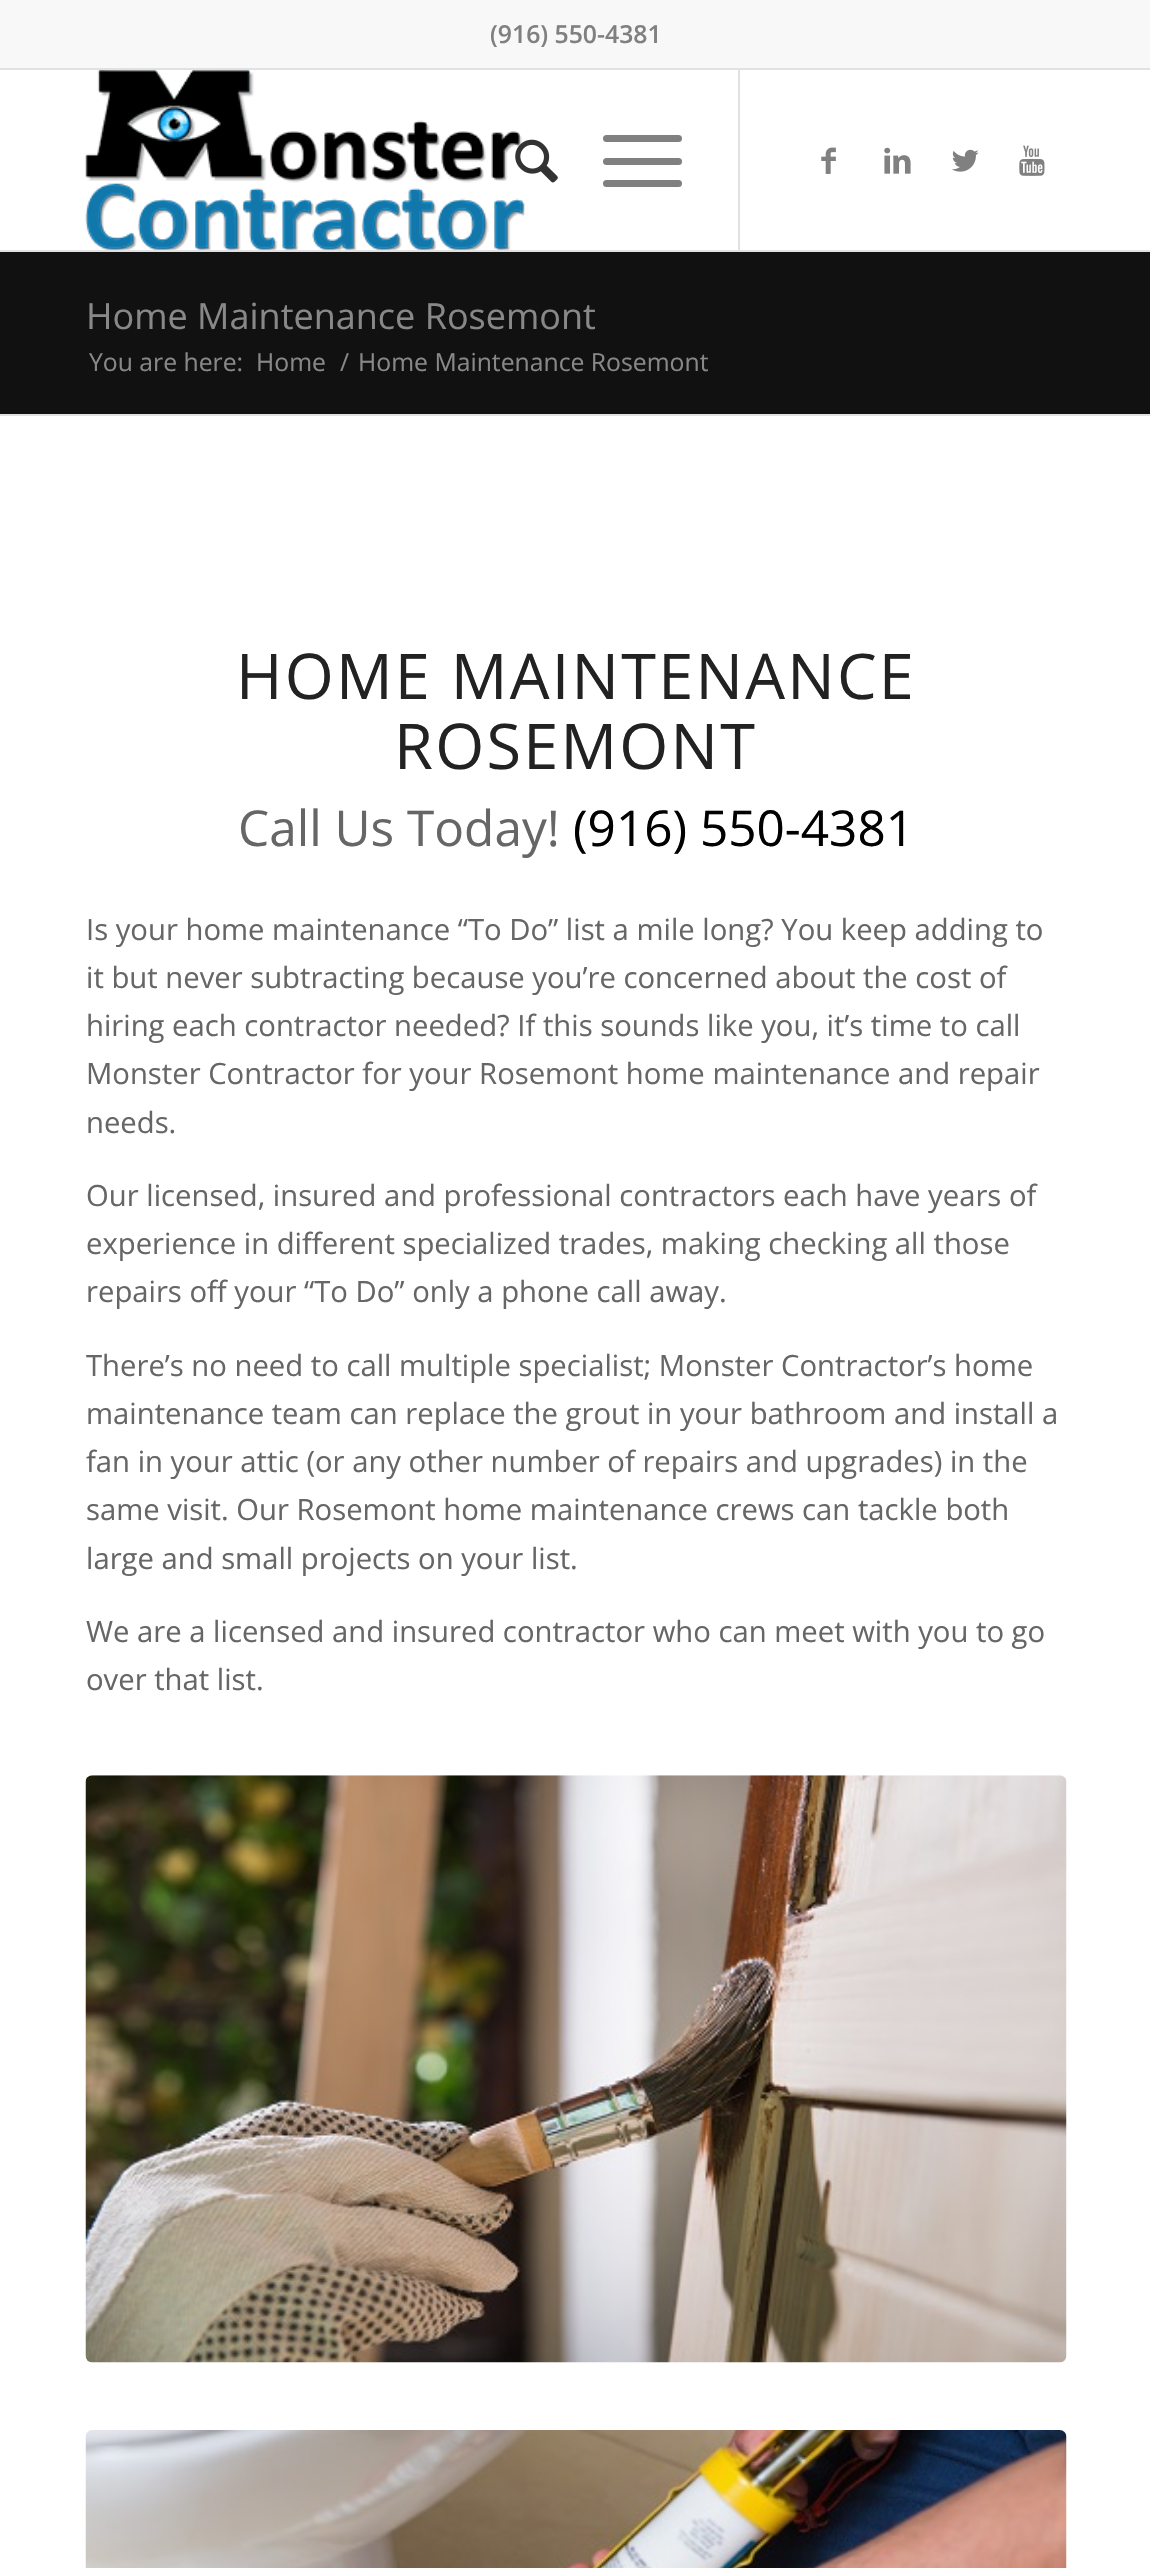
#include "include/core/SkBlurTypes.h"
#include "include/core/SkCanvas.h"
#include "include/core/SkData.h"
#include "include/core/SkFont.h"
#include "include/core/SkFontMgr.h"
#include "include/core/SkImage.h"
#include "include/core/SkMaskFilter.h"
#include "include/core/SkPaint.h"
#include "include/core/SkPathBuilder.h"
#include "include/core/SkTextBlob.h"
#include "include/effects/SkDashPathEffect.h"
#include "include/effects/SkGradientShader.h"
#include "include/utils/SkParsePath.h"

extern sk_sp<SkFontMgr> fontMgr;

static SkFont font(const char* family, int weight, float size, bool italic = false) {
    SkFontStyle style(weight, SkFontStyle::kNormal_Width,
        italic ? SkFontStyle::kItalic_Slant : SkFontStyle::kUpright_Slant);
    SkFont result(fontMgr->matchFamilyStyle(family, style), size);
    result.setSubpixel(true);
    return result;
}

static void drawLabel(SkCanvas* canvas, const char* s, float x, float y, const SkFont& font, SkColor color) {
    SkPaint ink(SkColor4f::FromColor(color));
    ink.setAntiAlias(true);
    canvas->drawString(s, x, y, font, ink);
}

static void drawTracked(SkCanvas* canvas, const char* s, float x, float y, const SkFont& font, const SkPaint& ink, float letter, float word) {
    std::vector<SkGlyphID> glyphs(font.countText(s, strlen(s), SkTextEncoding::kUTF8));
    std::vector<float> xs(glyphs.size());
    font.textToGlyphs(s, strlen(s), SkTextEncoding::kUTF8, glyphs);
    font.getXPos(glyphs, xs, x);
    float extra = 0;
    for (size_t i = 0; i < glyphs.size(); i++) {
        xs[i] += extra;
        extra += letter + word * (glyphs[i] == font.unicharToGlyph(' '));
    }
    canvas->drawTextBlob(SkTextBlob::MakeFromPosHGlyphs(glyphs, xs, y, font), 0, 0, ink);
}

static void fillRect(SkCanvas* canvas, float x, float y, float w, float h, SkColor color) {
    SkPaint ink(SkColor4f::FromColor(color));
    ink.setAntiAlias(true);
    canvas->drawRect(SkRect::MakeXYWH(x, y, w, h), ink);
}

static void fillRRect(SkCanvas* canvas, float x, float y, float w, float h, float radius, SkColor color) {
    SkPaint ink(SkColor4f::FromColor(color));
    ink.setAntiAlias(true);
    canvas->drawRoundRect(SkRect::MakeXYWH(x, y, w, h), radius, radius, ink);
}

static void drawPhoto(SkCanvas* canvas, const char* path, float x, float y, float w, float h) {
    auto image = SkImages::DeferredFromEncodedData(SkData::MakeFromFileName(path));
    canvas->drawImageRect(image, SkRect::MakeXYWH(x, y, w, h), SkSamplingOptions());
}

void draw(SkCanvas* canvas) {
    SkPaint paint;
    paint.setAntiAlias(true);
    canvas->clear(0xFFFFFFFF);
    fillRect(canvas, 0, 0, 1150, 68, 0xFFF8F8F8);
    fillRect(canvas, 0, 68, 1150, 2, 0xFFE1E1E1);
    SkFont font1 = font("Open Sans", 600, 24.75f);
    drawLabel(canvas, "(916) 550-4381", 490, 43, font1, 0xFF808080);
    fillRect(canvas, 0, 250, 1150, 2, 0xFFE1E1E1);
    drawPhoto(canvas, "assets/img1.png", 85, 70, 440, 180);
    fillRect(canvas, 738, 70, 2, 180, 0xFFE1E1E1);
    drawPhoto(canvas, "assets/img2.png", 515, 139, 43, 44);
    fillRRect(canvas, 603, 158, 79, 7, 3.5f, 0xFF808080);
    fillRRect(canvas, 603, 135, 79, 7, 3.5f, 0xFF808080);
    fillRRect(canvas, 603, 180, 79, 7, 3.5f, 0xFF808080);
    drawPhoto(canvas, "assets/img3.png", 821, 147, 15, 27);
    drawPhoto(canvas, "assets/img4.png", 884, 147, 27, 27);
    drawPhoto(canvas, "assets/img5.png", 952, 149, 27, 23);
    drawPhoto(canvas, "assets/img6.png", 1019, 145, 26, 31);
    fillRect(canvas, 0, 252, 1150, 162, 0xFF111111);
    SkFont font2 = font("Open Sans", 400, 36);
    drawLabel(canvas, "Home Maintenance Rosemont", 86, 329, font2, 0xFF888888);
    SkFont font3 = font("Open Sans", 400, 24.75f);
    drawLabel(canvas, "You are here:", 89, 371, font3, 0xFF888888);
    drawLabel(canvas, "Home", 256, 371, font3, 0xFF888888);
    drawLabel(canvas, "/", 340, 371, font3, 0xFF888888);
    drawLabel(canvas, "Home Maintenance Rosemont", 358, 371, font3, 0xFF888888);
    fillRect(canvas, 0, 414, 1150, 2, 0xFFE1E1E1);
    SkFont font4 = font("Open Sans", 400, 63);
    paint.setColor(0xFF222222);
    drawTracked(canvas, "HOME MAINTENANCE", 236, 699, font4, paint, 2.25f, 0);
    drawTracked(canvas, "ROSEMONT", 394, 769, font4, paint, 2.25f, 0);
    SkFont font5 = font("Open Sans", 400, 49.5f);
    drawLabel(canvas, "Call Us Today!", 238, 846, font5, 0xFF666666);
    drawLabel(canvas, "(916) 550-4381", 573, 846, font5, 0xFF000000);
    SkFont font6 = font("Open Sans", 400, 29.25f);
    drawLabel(canvas, "Is your home maintenance “To Do” list a mile long? You keep adding to", 86, 940, font6, 0xFF666666);
    drawLabel(canvas, "it but never subtracting because you’re concerned about the cost of", 86, 988, font6, 0xFF666666);
    drawLabel(canvas, "hiring each contractor needed? If this sounds like you, it’s time to call", 86, 1036, font6, 0xFF666666);
    drawLabel(canvas, "Monster Contractor for your Rosemont home maintenance and repair", 86, 1084, font6, 0xFF666666);
    drawLabel(canvas, "needs.", 86, 1133, font6, 0xFF666666);
    drawLabel(canvas, "Our licensed, insured and professional contractors each have years of", 86, 1206, font6, 0xFF666666);
    drawLabel(canvas, "experience in different specialized trades, making checking all those", 86, 1254, font6, 0xFF666666);
    drawLabel(canvas, "repairs off your “To Do” only a phone call away.", 86, 1302, font6, 0xFF666666);
    drawLabel(canvas, "There’s no need to call multiple specialist; Monster Contractor’s home", 86, 1376, font6, 0xFF666666);
    drawLabel(canvas, "maintenance team can replace the grout in your bathroom and install a", 86, 1424, font6, 0xFF666666);
    drawLabel(canvas, "fan in your attic (or any other number of repairs and upgrades) in the", 86, 1472, font6, 0xFF666666);
    drawLabel(canvas, "same visit. Our Rosemont home maintenance crews can tackle both", 86, 1520, font6, 0xFF666666);
    drawLabel(canvas, "large and small projects on your list.", 86, 1569, font6, 0xFF666666);
    drawLabel(canvas, "We are a licensed and insured contractor who can meet with you to go", 86, 1642, font6, 0xFF666666);
    drawLabel(canvas, "over that list.", 86, 1690, font6, 0xFF666666);
    drawPhoto(canvas, "assets/img7.png", 85, 1775, 982, 588);
    drawPhoto(canvas, "assets/img8.png", 85, 2430, 982, 138);
}
